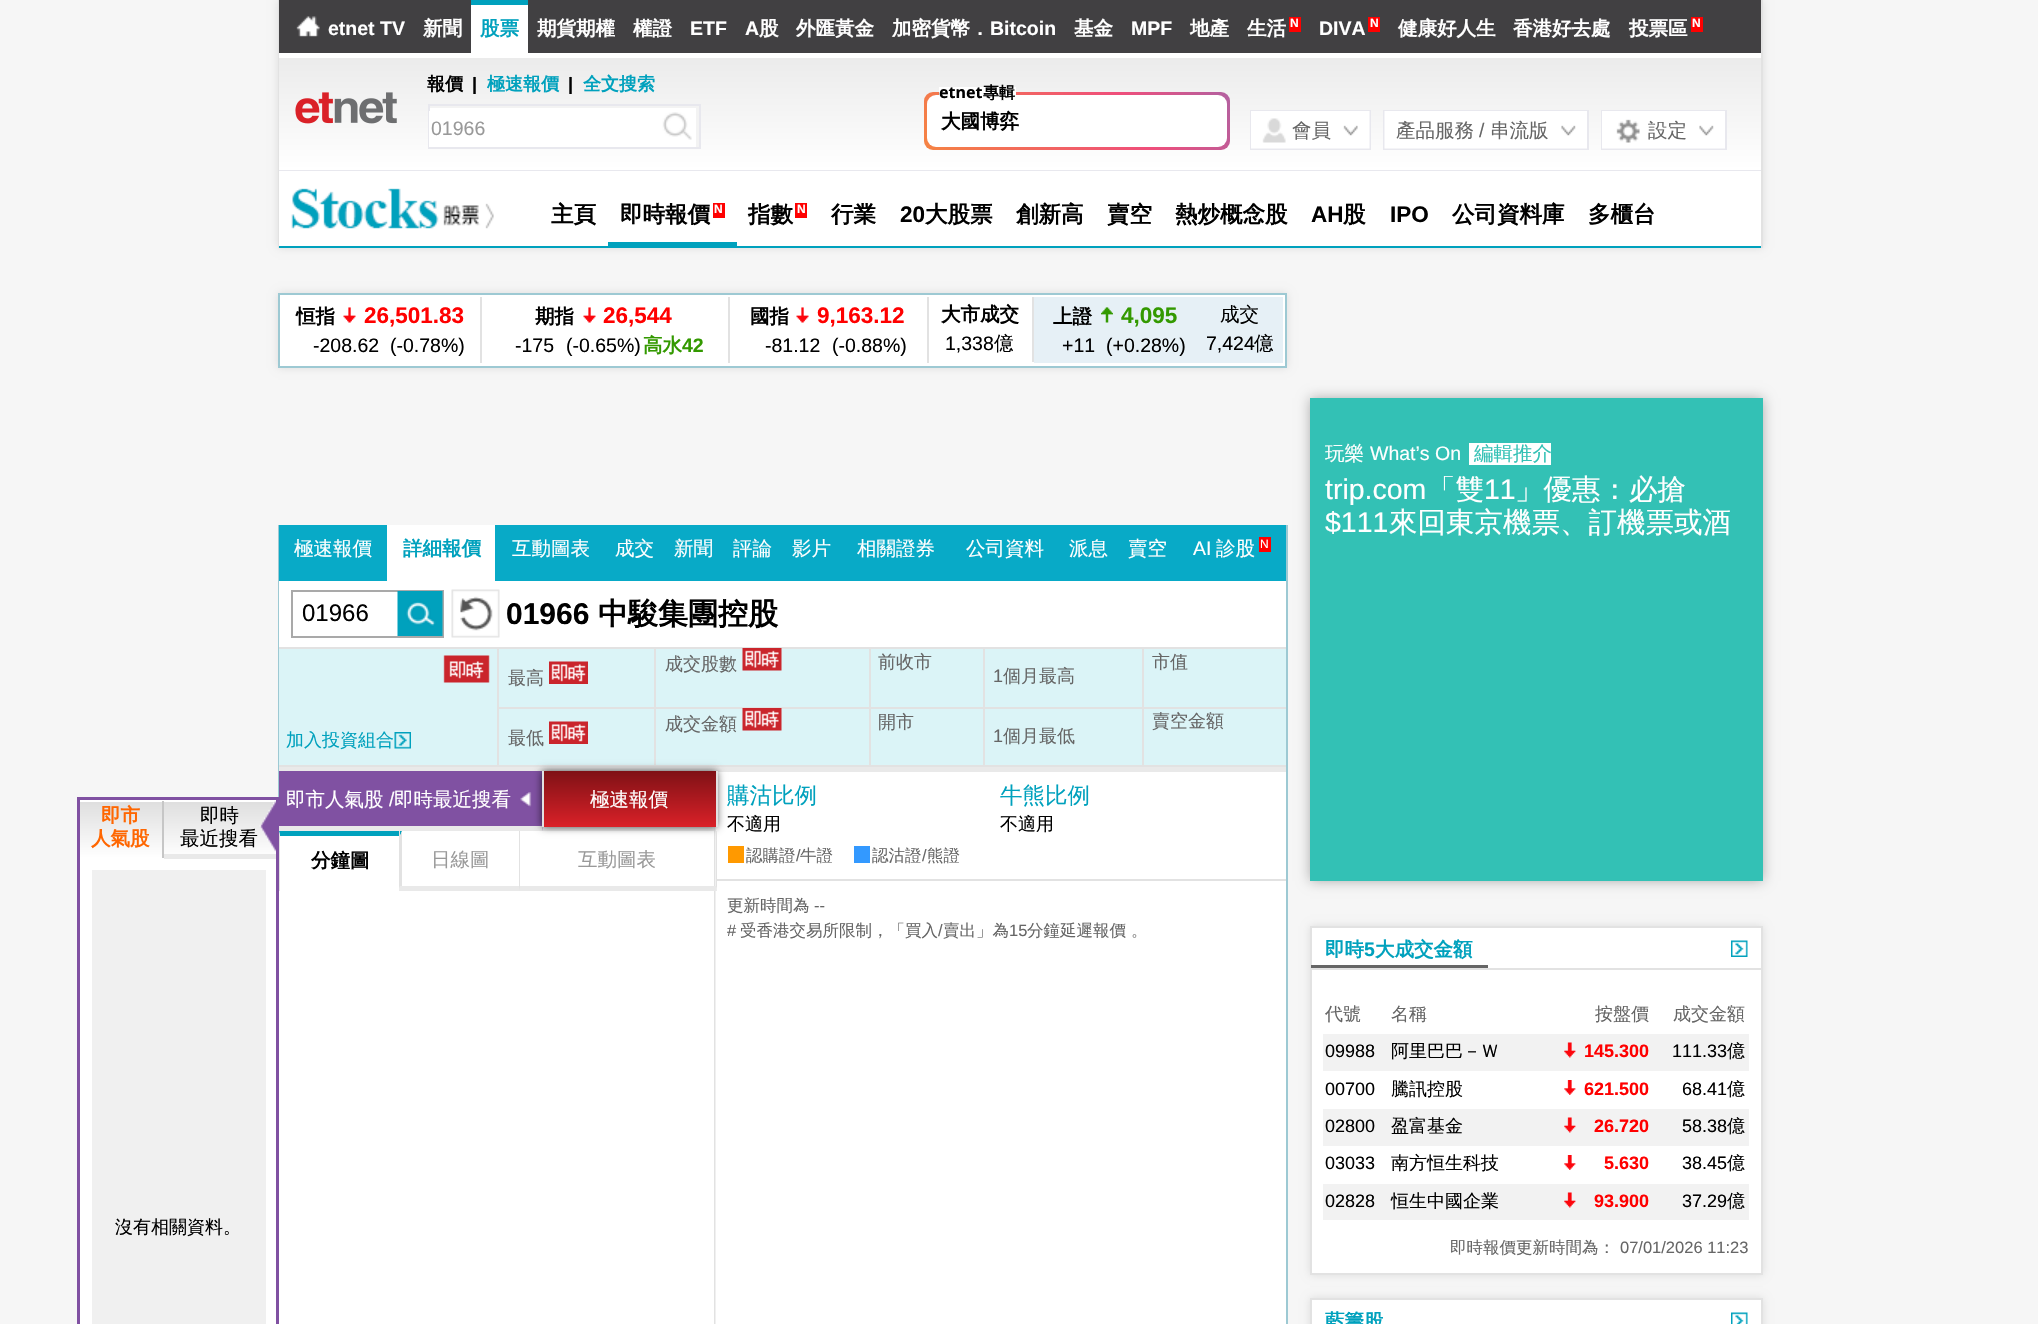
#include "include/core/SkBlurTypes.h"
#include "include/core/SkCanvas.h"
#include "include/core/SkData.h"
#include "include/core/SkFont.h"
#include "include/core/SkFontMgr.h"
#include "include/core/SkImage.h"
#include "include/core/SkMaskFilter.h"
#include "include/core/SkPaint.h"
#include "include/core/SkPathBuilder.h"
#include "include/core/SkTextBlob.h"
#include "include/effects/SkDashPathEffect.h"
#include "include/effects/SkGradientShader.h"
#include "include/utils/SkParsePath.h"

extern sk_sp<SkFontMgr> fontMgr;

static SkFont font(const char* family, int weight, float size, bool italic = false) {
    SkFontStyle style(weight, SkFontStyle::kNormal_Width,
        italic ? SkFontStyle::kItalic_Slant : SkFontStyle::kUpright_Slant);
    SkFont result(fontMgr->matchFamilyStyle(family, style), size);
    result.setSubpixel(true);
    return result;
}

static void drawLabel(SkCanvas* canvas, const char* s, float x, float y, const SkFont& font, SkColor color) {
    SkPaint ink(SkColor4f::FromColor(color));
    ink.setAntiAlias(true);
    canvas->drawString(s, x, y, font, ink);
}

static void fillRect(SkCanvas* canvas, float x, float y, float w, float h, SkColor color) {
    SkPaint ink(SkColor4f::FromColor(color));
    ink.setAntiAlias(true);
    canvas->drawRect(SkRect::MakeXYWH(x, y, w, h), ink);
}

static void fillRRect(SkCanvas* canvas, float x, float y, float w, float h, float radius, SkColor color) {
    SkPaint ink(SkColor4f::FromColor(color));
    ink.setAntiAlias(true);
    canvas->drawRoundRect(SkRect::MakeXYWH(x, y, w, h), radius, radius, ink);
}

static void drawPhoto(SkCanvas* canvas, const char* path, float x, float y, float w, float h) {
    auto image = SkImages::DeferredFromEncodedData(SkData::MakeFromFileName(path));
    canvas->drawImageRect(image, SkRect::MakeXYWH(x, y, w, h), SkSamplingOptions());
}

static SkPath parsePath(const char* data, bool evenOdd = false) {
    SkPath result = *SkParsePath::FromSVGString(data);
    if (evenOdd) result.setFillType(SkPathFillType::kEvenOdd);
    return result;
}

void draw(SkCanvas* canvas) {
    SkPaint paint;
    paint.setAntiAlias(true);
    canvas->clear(0xFFF6F6F6);
    paint.setColor(0x1A000000);
    paint.setMaskFilter(SkMaskFilter::MakeBlur(kNormal_SkBlurStyle, 4));
    canvas->drawRect(SkRect::MakeXYWH(278, 0, 1485, 248), paint);
    paint.setMaskFilter(nullptr);
    fillRect(canvas, 1761, 0, 2, 248, 0xFFE2E2E2);
    fillRect(canvas, 278, 0, 1, 248, 0xFFE2E2E2);
    fillRect(canvas, 279, 0, 1482, 53, 0xFF414042);
    drawPhoto(canvas, "assets/img1.png", 296, 16, 24, 21);
    SkFont font1 = font("Liberation Sans", 700, 19.5f);
    drawLabel(canvas, "etnet TV", 328, 35, font1, 0xFFFFFFFF);
    SkFont font2 = font("WenQuanYi Zen Hei", 700, 19.5f);
    drawLabel(canvas, "新聞", 423, 35, font2, 0xFFFFFFFF);
    fillRect(canvas, 471, 5, 57, 48, 0xFFFFFFFF);
    fillRect(canvas, 471, 0, 57, 5, 0xFF00A1BD);
    drawLabel(canvas, "股票", 480, 35, font2, 0xFF00A1BD);
    drawLabel(canvas, "期貨期權", 537, 35, font2, 0xFFFFFFFF);
    drawLabel(canvas, "權證", 633, 35, font2, 0xFFFFFFFF);
    drawLabel(canvas, "ETF", 690, 35, font1, 0xFFFFFFFF);
    drawLabel(canvas, "A", 745, 35, font1, 0xFFFFFFFF);
    drawLabel(canvas, "股", 759, 35, font2, 0xFFFFFFFF);
    drawLabel(canvas, "外匯黃金", 796, 35, font2, 0xFFFFFFFF);
    drawLabel(canvas, "加密貨幣．", 892, 35, font2, 0xFFFFFFFF);
    drawLabel(canvas, "Bitcoin", 990, 35, font1, 0xFFFFFFFF);
    drawLabel(canvas, "基金", 1074, 35, font2, 0xFFFFFFFF);
    drawLabel(canvas, "MPF", 1131, 35, font1, 0xFFFFFFFF);
    drawLabel(canvas, "地產", 1190, 35, font2, 0xFFFFFFFF);
    drawLabel(canvas, "生活", 1247, 35, font2, 0xFFFFFFFF);
    fillRect(canvas, 1289, 17, 12, 15, 0xFFFF0000);
    SkFont font3 = font("Liberation Sans", 700, 12);
    drawLabel(canvas, "N", 1290, 27, font3, 0xFFFFFFFF);
    drawLabel(canvas, "DIVA", 1319, 35, font1, 0xFFFFFFFF);
    fillRect(canvas, 1368, 17, 12, 15, 0xFFFF0000);
    drawLabel(canvas, "N", 1370, 27, font3, 0xFFFFFFFF);
    drawLabel(canvas, "健康好人生", 1398, 35, font2, 0xFFFFFFFF);
    drawLabel(canvas, "香港好去處", 1513, 35, font2, 0xFFFFFFFF);
    drawLabel(canvas, "投票區", 1629, 35, font2, 0xFFFFFFFF);
    fillRect(canvas, 1691, 17, 12, 15, 0xFFFF0000);
    drawLabel(canvas, "N", 1692, 27, font3, 0xFFFFFFFF);
    {
        const SkColor colors[] = {0xFFEBEBEB, 0xFFFFFFFF};
        const float stops[] = {0, 1};
        const SkPoint ends[] = {{1020, 57}, {1020, 170}};
        paint.setShader(SkGradientShader::MakeLinear(ends, colors, stops, 2, SkTileMode::kClamp));
        paint.setAlpha(255);
    }
    canvas->drawRect(SkRect::MakeXYWH(279, 58, 1482, 112), paint);
    fillRect(canvas, 279, 53, 1482, 5, 0xFFFFFFFF);
    fillRect(canvas, 279, 170, 1482, 1, 0xFFE8E8EE);
    drawPhoto(canvas, "assets/img2.png", 295, 92, 102, 32);
    SkFont font4 = font("WenQuanYi Zen Hei", 700, 18);
    drawLabel(canvas, "報價", 427, 90, font4, 0xFF000000);
    SkFont font5 = font("Liberation Sans", 700, 18);
    drawLabel(canvas, "|", 472, 90, font5, 0xFF000000);
    drawLabel(canvas, "極速報價", 487, 90, font4, 0xFF00A1BD);
    drawLabel(canvas, "|", 568, 90, font5, 0xFF000000);
    drawLabel(canvas, "全文搜索", 583, 90, font4, 0xFF00A1BD);
    fillRect(canvas, 430, 108, 266, 39, 0xFFFFFFFF);
    canvas->save();
    canvas->clipRect(SkRect::MakeXYWH(429, 105, 270, 42));
    paint.setShader(nullptr);
    paint.setColor(0xFFF3F3F3);
    canvas->drawPath(parsePath("M280-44H848V296H280ZM426 108H696V150H426Z", true), paint);
    canvas->restore();
    paint.setStroke(true);
    paint.setStrokeWidth(2);
    paint.setColor(0xFFE8E8EE);
    canvas->drawRect(SkRect::MakeXYWH(429, 105, 271, 43), paint);
    fillRect(canvas, 429, 111, 1, 36, 0xFFFFFFFF);
    SkFont font6 = font("Liberation Sans", 400, 19.5f);
    drawLabel(canvas, "01966", 431, 135, font6, 0xFF999999);
    drawPhoto(canvas, "assets/img3.png", 660, 111, 33, 33);
    paint.setStroke(false);
    {
        const SkColor colors[] = {0xFFF79533, 0xFFF37055, 0xFFEF4E7B, 0xFFA166AB, 0xFF5073B8, 0xFF1098AD, 0xFF07B39B, 0xFF6FBA82};
        const float stops[] = {0, 0.14f, 0.29f, 0.43f, 0.57f, 0.71f, 0.86f, 1};
        const SkPoint ends[] = {{1001, 400}, {1765, -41}};
        paint.setShader(SkGradientShader::MakeLinear(ends, colors, stops, 8, SkTileMode::kClamp));
        paint.setAlpha(255);
    }
    canvas->drawRoundRect(SkRect::MakeXYWH(924, 92, 306, 58), 9, 9, paint);
    fillRect(canvas, 939, 87, 77, 8, 0xFFFFFFFF);
    fillRRect(canvas, 927, 95, 300, 52, 9, 0xFFFFFFFF);
    SkFont font7 = font("Noto Sans", 700, 16);
    drawLabel(canvas, "etnet", 939, 98, font7, 0xFF000000);
    SkFont font8 = font("WenQuanYi Zen Hei", 700, 16);
    drawLabel(canvas, "專輯", 983, 98, font8, 0xFF000000);
    drawLabel(canvas, "大國博弈", 941, 128, font2, 0xFF000000);
    paint.setStroke(true);
    paint.setShader(nullptr);
    paint.setColor(0xFFE8E8EE);
    canvas->drawRect(SkRect::MakeXYWH(1251, 111, 119, 38), paint);
    drawPhoto(canvas, "assets/img4.png", 1251, 111, 119, 38);
    drawPhoto(canvas, "assets/img5.png", 1262, 118, 24, 25);
    SkFont font9 = font("WenQuanYi Zen Hei", 500, 19.5f);
    drawLabel(canvas, "會員", 1292, 137, font9, 0xFF666666);
    canvas->drawRect(SkRect::MakeXYWH(1384, 111, 204, 38), paint);
    drawPhoto(canvas, "assets/img6.png", 1384, 111, 203, 38);
    drawLabel(canvas, "產品服務", 1396, 137, font9, 0xFF666666);
    drawLabel(canvas, "/", 1479, 137, font6, 0xFF666666);
    drawLabel(canvas, "串流版", 1490, 137, font9, 0xFF666666);
    canvas->drawRect(SkRect::MakeXYWH(1602, 111, 124, 38), paint);
    drawPhoto(canvas, "assets/img7.png", 1602, 111, 123, 38);
    drawPhoto(canvas, "assets/img8.png", 1616, 119, 24, 24);
    drawLabel(canvas, "設定", 1648, 137, font9, 0xFF666666);
    fillRect(canvas, 279, 171, 1482, 75, 0xFFFFFFFF);
    fillRect(canvas, 279, 246, 1482, 2, 0xFF00A1BD);
    drawPhoto(canvas, "assets/img9.png", 291, 188, 203, 41);
    SkFont font10 = font("WenQuanYi Zen Hei", 700, 22.5f);
    drawLabel(canvas, "主頁", 551, 222, font10, 0xFF000000);
    fillRect(canvas, 608, 242, 129, 4, 0xFF00A1BD);
    drawLabel(canvas, "即時報價", 620, 222, font10, 0xFF000000);
    fillRect(canvas, 713, 203, 12, 15, 0xFFFF0000);
    drawLabel(canvas, "N", 714, 213, font3, 0xFFFFFFFF);
    drawLabel(canvas, "指數", 748, 222, font10, 0xFF000000);
    fillRect(canvas, 795, 203, 12, 15, 0xFFFF0000);
    drawLabel(canvas, "N", 797, 213, font3, 0xFFFFFFFF);
    drawLabel(canvas, "行業", 831, 222, font10, 0xFF000000);
    SkFont font11 = font("Liberation Sans", 700, 22.5f);
    drawLabel(canvas, "20", 900, 222, font11, 0xFF000000);
    drawLabel(canvas, "大股票", 925, 222, font10, 0xFF000000);
    drawLabel(canvas, "創新高", 1016, 222, font10, 0xFF000000);
    drawLabel(canvas, "賣空", 1107, 222, font10, 0xFF000000);
    drawLabel(canvas, "熱炒概念股", 1175, 222, font10, 0xFF000000);
    drawLabel(canvas, "AH", 1311, 222, font11, 0xFF000000);
    drawLabel(canvas, "股", 1343, 222, font10, 0xFF000000);
    drawLabel(canvas, "IPO", 1390, 222, font11, 0xFF000000);
    drawLabel(canvas, "公司資料庫", 1452, 222, font10, 0xFF000000);
    drawLabel(canvas, "多櫃台", 1588, 222, font10, 0xFF000000);
    fillRect(canvas, 80, 858, 196, 466, 0xFFFFFFFF);
    paint.setStrokeWidth(3);
    paint.setColor(0xFF8051A2);
    canvas->drawRect(SkRect::MakeXYWH(78.5f, 798.5f, 199, 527), paint);
    paint.setStroke(false);
    {
        const SkColor colors[] = {0xFFDEDEDE, 0xFFFFFFFF};
        const float stops[] = {0, 1};
        const SkPoint ends[] = {{178, 801}, {178, 858}};
        paint.setShader(SkGradientShader::MakeLinear(ends, colors, stops, 2, SkTileMode::kClamp));
        paint.setAlpha(255);
    }
    canvas->drawRect(SkRect::MakeXYWH(80, 802, 196, 56), paint);
    fillRect(canvas, 80, 800, 196, 2, 0xFFFFFFFF);
    fillRect(canvas, 162, 801, 2, 57, 0xFFC6C6C6);
    drawLabel(canvas, "即市", 101, 822, font2, 0xFFFF6600);
    drawLabel(canvas, "人氣股", 91, 845, font2, 0xFFFF6600);
    fillRect(canvas, 164, 854, 112, 5, 0xFFE9E9E9);
    drawLabel(canvas, "即時", 200, 822, font9, 0xFF000000);
    drawLabel(canvas, "最近搜看", 180, 845, font9, 0xFF000000);
    drawPhoto(canvas, "assets/img10.png", 259, 800, 17, 52);
    fillRect(canvas, 92, 870, 174, 454, 0xFFF0F0F0);
    SkFont font12 = font("WenQuanYi Zen Hei", 500, 18);
    drawLabel(canvas, "沒有相關資料。", 115, 1233, font12, 0xFF000000);
    paint.setShader(nullptr);
    paint.setColor(0x1A000000);
    paint.setMaskFilter(SkMaskFilter::MakeBlur(kNormal_SkBlurStyle, 4));
    canvas->drawRect(SkRect::MakeXYWH(278, 293, 1009, 75), paint);
    paint.setMaskFilter(nullptr);
    paint.setColor(0xFFFFFFFF);
    canvas->drawRect(SkRect::MakeXYWH(279, 294, 1007, 73), paint);
    paint.setStroke(true);
    paint.setStrokeWidth(2);
    paint.setColor(0xFF9DC9D3);
    canvas->drawRect(SkRect::MakeXYWH(279, 294, 1007, 73), paint);
    fillRect(canvas, 480, 297, 2, 66, 0xFFE2E2E2);
    drawLabel(canvas, "恒指", 296, 323, font2, 0xFF000000);
    drawPhoto(canvas, "assets/img11.png", 343, 307, 13, 16);
    drawLabel(canvas, "26,501.83", 364, 323, font11, 0xFFFF0000);
    drawLabel(canvas, "-208.62", 313, 352, font6, 0xFF000000);
    drawLabel(canvas, "(-0.78%)", 390, 352, font6, 0xFF000000);
    fillRect(canvas, 728, 297, 2, 66, 0xFFE2E2E2);
    drawLabel(canvas, "期指", 535, 323, font2, 0xFF000000);
    drawPhoto(canvas, "assets/img11.png", 583, 307, 13, 16);
    drawLabel(canvas, "26,544", 603, 323, font11, 0xFFFF0000);
    drawLabel(canvas, "-175", 515, 352, font6, 0xFF000000);
    drawLabel(canvas, "(-0.65%)", 566, 352, font6, 0xFF000000);
    drawLabel(canvas, "高水", 643, 352, font2, 0xFF339900);
    drawLabel(canvas, "42", 682, 352, font1, 0xFF339900);
    fillRect(canvas, 927, 297, 2, 66, 0xFFE2E2E2);
    drawLabel(canvas, "國指", 750, 323, font2, 0xFF000000);
    drawPhoto(canvas, "assets/img12.png", 796, 307, 13, 16);
    drawLabel(canvas, "9,163.12", 817, 323, font11, 0xFFFF0000);
    drawLabel(canvas, "-81.12", 765, 352, font6, 0xFF000000);
    drawLabel(canvas, "(-0.88%)", 832, 352, font6, 0xFF000000);
    fillRect(canvas, 1032, 297, 2, 65, 0xFFE2E2E2);
    drawLabel(canvas, "大市成交", 941, 321, font2, 0xFF000000);
    drawLabel(canvas, "1,338", 945, 350, font6, 0xFF000000);
    drawLabel(canvas, "億", 994, 350, font9, 0xFF000000);
    fillRect(canvas, 1034, 297, 249, 66, 0xFFE6F0F6);
    drawLabel(canvas, "上證", 1053, 323, font2, 0xFF000000);
    drawPhoto(canvas, "assets/img13.png", 1101, 307, 12, 16);
    drawLabel(canvas, "4,095", 1121, 323, font11, 0xFF339900);
    drawLabel(canvas, "+11", 1062, 352, font6, 0xFF000000);
    drawLabel(canvas, "(+0.28%)", 1106, 352, font6, 0xFF000000);
    drawLabel(canvas, "成交", 1220, 321, font9, 0xFF000000);
    drawLabel(canvas, "7,424", 1206, 350, font6, 0xFF000000);
    drawLabel(canvas, "億", 1254, 350, font9, 0xFF000000);
    fillRect(canvas, 387, 525, 899, 799, 0xFFFFFFFF);
    fillRect(canvas, 1286, 525, 2, 799, 0xFF9DC9D3);
    fillRect(canvas, 278, 525, 1, 272, 0xFF9DC9D3);
    fillRect(canvas, 279, 525, 108, 56, 0xFF08AAC7);
    drawLabel(canvas, "極速報價", 294, 555, font9, 0xFFFFFFFF);
    drawLabel(canvas, "詳細報價", 403, 555, font2, 0xFF00A1BD);
    fillRect(canvas, 495, 525, 791, 56, 0xFF08AAC7);
    drawLabel(canvas, "互動圖表", 512, 555, font9, 0xFFFFFFFF);
    drawLabel(canvas, "成交", 615, 555, font9, 0xFFFFFFFF);
    drawLabel(canvas, "新聞", 674, 555, font9, 0xFFFFFFFF);
    drawLabel(canvas, "評論", 733, 555, font9, 0xFFFFFFFF);
    drawLabel(canvas, "影片", 792, 555, font9, 0xFFFFFFFF);
    drawLabel(canvas, "相關證券", 857, 555, font9, 0xFFFFFFFF);
    drawLabel(canvas, "公司資料", 966, 555, font9, 0xFFFFFFFF);
    drawLabel(canvas, "派息", 1069, 555, font9, 0xFFFFFFFF);
    drawLabel(canvas, "賣空", 1128, 555, font9, 0xFFFFFFFF);
    drawLabel(canvas, "AI", 1193, 555, font6, 0xFFFFFFFF);
    drawLabel(canvas, "診股", 1216, 555, font9, 0xFFFFFFFF);
    fillRect(canvas, 1259, 537, 12, 15, 0xFFFF0000);
    SkFont font13 = font("Liberation Sans", 400, 12);
    drawLabel(canvas, "N", 1260, 548, font13, 0xFFFFFFFF);
    fillRect(canvas, 279, 581, 108, 66, 0xFFFFFFFF);
    paint.setColor(0xFFA9A9A9);
    canvas->drawRect(SkRect::MakeXYWH(292, 591, 151, 46), paint);
    SkFont font14 = font("Liberation Sans", 400, 24);
    drawLabel(canvas, "01966", 302, 621, font14, 0xFF000000);
    drawPhoto(canvas, "assets/img14.png", 397, 591, 46, 45);
    drawPhoto(canvas, "assets/img15.png", 451, 589, 49, 49);
    SkFont font15 = font("Liberation Sans", 700, 30);
    drawLabel(canvas, "01966", 506, 624, font15, 0xFF000000);
    SkFont font16 = font("WenQuanYi Zen Hei", 700, 30);
    drawLabel(canvas, "中駿集團控股", 598, 624, font16, 0xFF000000);
    fillRect(canvas, 279, 767, 1007, 5, 0xFFE9E9E9);
    fillRect(canvas, 279, 649, 1007, 116, 0xFFDBF4F7);
    fillRect(canvas, 279, 647, 1007, 2, 0xFFE2E2E2);
    fillRect(canvas, 279, 765, 1007, 2, 0xFFE2E2E2);
    fillRect(canvas, 1142, 707, 2, 60, 0xFFE2E2E2);
    fillRect(canvas, 1142, 707, 144, 2, 0xFFE2E2E2);
    fillRect(canvas, 1142, 647, 2, 61, 0xFFE2E2E2);
    fillRect(canvas, 983, 707, 2, 60, 0xFFE2E2E2);
    fillRect(canvas, 983, 707, 160, 2, 0xFFE2E2E2);
    fillRect(canvas, 983, 647, 2, 61, 0xFFE2E2E2);
    fillRect(canvas, 869, 707, 2, 60, 0xFFE2E2E2);
    fillRect(canvas, 869, 707, 115, 2, 0xFFE2E2E2);
    fillRect(canvas, 869, 647, 2, 61, 0xFFE2E2E2);
    fillRect(canvas, 654, 707, 2, 60, 0xFFE2E2E2);
    fillRect(canvas, 654, 707, 216, 2, 0xFFE2E2E2);
    fillRect(canvas, 654, 647, 2, 61, 0xFFE2E2E2);
    drawLabel(canvas, "成交股數", 665, 670, font12, 0xFF666666);
    drawPhoto(canvas, "assets/img16.png", 742, 648, 40, 23);
    drawLabel(canvas, "前收市", 878, 668, font12, 0xFF666666);
    drawLabel(canvas, "市值", 1152, 668, font12, 0xFF666666);
    fillRect(canvas, 497, 707, 2, 60, 0xFFE2E2E2);
    fillRect(canvas, 497, 707, 159, 2, 0xFFE2E2E2);
    fillRect(canvas, 497, 647, 2, 61, 0xFFE2E2E2);
    drawLabel(canvas, "最高", 508, 684, font12, 0xFF666666);
    drawPhoto(canvas, "assets/img17.png", 549, 661, 39, 23);
    SkFont font17 = font("Liberation Sans", 400, 18);
    drawLabel(canvas, "1", 993, 682, font17, 0xFF666666);
    drawLabel(canvas, "個月最高", 1003, 682, font12, 0xFF666666);
    drawPhoto(canvas, "assets/img18.png", 443, 655, 47, 28);
    drawLabel(canvas, "加入投資組合", 286, 746, font12, 0xFF00A1BD);
    drawPhoto(canvas, "assets/img19.png", 394, 732, 17, 17);
    drawLabel(canvas, "成交金額", 665, 730, font12, 0xFF666666);
    drawPhoto(canvas, "assets/img16.png", 742, 708, 40, 23);
    drawLabel(canvas, "開市", 878, 728, font12, 0xFF666666);
    drawLabel(canvas, "賣空金額", 1152, 727, font12, 0xFF666666);
    drawLabel(canvas, "最低", 508, 744, font12, 0xFF666666);
    drawPhoto(canvas, "assets/img17.png", 549, 721, 39, 23);
    drawLabel(canvas, "1", 993, 742, font17, 0xFF666666);
    drawLabel(canvas, "個月最低", 1003, 742, font12, 0xFF666666);
    drawPhoto(canvas, "assets/img20.png", 714, 827, 2, 497);
    fillRect(canvas, 279, 771, 264, 60, 0xFF8051A2);
    drawPhoto(canvas, "assets/img21.png", 520, 792, 12, 15);
    paint.setStroke(false);
    paint.setColor(0xFFE2E2E2);
    canvas->drawPath(parsePath("M543 771V831L542 826V771Z"), paint);
    paint.setColor(0xFFE9E9E9);
    canvas->drawPath(parsePath("M543 831H279V826H542Z"), paint);
    drawLabel(canvas, "即市人氣股", 286, 806, font9, 0xFFFFFFFF);
    drawLabel(canvas, "/", 389, 806, font6, 0xFFFFFFFF);
    drawLabel(canvas, "即時最近搜看", 394, 806, font9, 0xFFFFFFFF);
    fillRect(canvas, 543, 827, 171, 4, 0xFFE9E9E9);
    paint.setColor(0xB3000000);
    paint.setMaskFilter(SkMaskFilter::MakeBlur(kNormal_SkBlurStyle, 4));
    canvas->drawRect(SkRect::MakeXYWH(542, 771, 175, 56), paint);
    paint.setMaskFilter(nullptr);
    {
        const SkColor colors[] = {0xFF7F1116, 0xFFDA2128};
        const float stops[] = {0, 1};
        const SkPoint ends[] = {{629, 771}, {629, 827}};
        paint.setShader(SkGradientShader::MakeLinear(ends, colors, stops, 2, SkTileMode::kClamp));
        paint.setAlpha(255);
    }
    canvas->drawRect(SkRect::MakeXYWH(544, 771, 172, 56), paint);
    fillRect(canvas, 716, 771, 2, 56, 0xFFE2E2E2);
    fillRect(canvas, 542, 771, 2, 56, 0xFFE2E2E2);
    drawLabel(canvas, "極速報價", 590, 806, font9, 0xFFFFFFFF);
    fillRect(canvas, 279, 831, 108, 493, 0xFFFFFFFF);
    paint.setShader(nullptr);
    paint.setColor(0xFF00A1BD);
    canvas->drawPath(parsePath("M279 831H402L400 836H280Z"), paint);
    paint.setColor(0xFFE2E2E2);
    canvas->drawPath(parsePath("M402 831V891H400V836Z"), paint);
    canvas->drawPath(parsePath("M279 891V831L280 836V891Z"), paint);
    drawLabel(canvas, "分鐘圖", 311, 867, font2, 0xFF000000);
    paint.setColor(0xFFE9E9E9);
    canvas->drawPath(parsePath("M520 891H399L400 886H520Z"), paint);
    paint.setColor(0xFFE2E2E2);
    canvas->drawPath(parsePath("M399 891V831H400V886Z"), paint);
    drawLabel(canvas, "日線圖", 431, 866, font9, 0xFF999999);
    fillRect(canvas, 716, 879, 570, 2, 0xFFE2E2E2);
    canvas->drawPath(parsePath("M717 831V891L716 886V831Z"), paint);
    paint.setColor(0xFFE9E9E9);
    canvas->drawPath(parsePath("M717 891H519L520 886H716Z"), paint);
    paint.setColor(0xFFE2E2E2);
    canvas->drawPath(parsePath("M519 891V831H520V886Z"), paint);
    drawLabel(canvas, "互動圖表", 578, 866, font9, 0xFF999999);
    SkFont font18 = font("WenQuanYi Zen Hei", 500, 22.5f);
    drawLabel(canvas, "購沽比例", 727, 803, font18, 0xFF00A1BD);
    drawLabel(canvas, "不適用", 727, 830, font12, 0xFF000000);
    drawLabel(canvas, "牛熊比例", 1000, 803, font18, 0xFF00A1BD);
    drawLabel(canvas, "不適用", 1000, 830, font12, 0xFF000000);
    fillRect(canvas, 728, 846, 16, 17, 0xFFFF9900);
    SkFont font19 = font("WenQuanYi Zen Hei", 500, 16.5f);
    drawLabel(canvas, "認購證", 746, 861, font19, 0xFF666666);
    SkFont font20 = font("Liberation Sans", 400, 16.5f);
    drawLabel(canvas, "/", 796, 861, font20, 0xFF666666);
    drawLabel(canvas, "牛證", 800, 861, font19, 0xFF666666);
    fillRect(canvas, 854, 846, 16, 17, 0xFF3399FF);
    drawLabel(canvas, "認沽證", 872, 861, font19, 0xFF666666);
    drawLabel(canvas, "/", 922, 861, font20, 0xFF666666);
    drawLabel(canvas, "熊證", 927, 861, font19, 0xFF666666);
    drawLabel(canvas, "更新時間為", 727, 911, font19, 0xFF666666);
    drawLabel(canvas, "--", 814, 911, font20, 0xFF666666);
    drawLabel(canvas, "#", 727, 936, font20, 0xFF666666);
    drawLabel(canvas, "受香港交易所限制，「買入", 740, 936, font19, 0xFF666666);
    drawLabel(canvas, "/", 938, 936, font20, 0xFF666666);
    drawLabel(canvas, "賣出」為", 943, 936, font19, 0xFF666666);
    drawLabel(canvas, "15", 1009, 936, font20, 0xFF666666);
    drawLabel(canvas, "分鐘延遲報價 。", 1027, 936, font19, 0xFF666666);
    paint.setColor(0x4D000000);
    paint.setMaskFilter(SkMaskFilter::MakeBlur(kNormal_SkBlurStyle, 6));
    canvas->drawRect(SkRect::MakeXYWH(1310, 398, 453, 483), paint);
    paint.setMaskFilter(nullptr);
    fillRect(canvas, 1310, 398, 453, 483, 0xFF33C1B5);
    drawLabel(canvas, "玩樂", 1325, 460, font9, 0xFFFFFFFF);
    drawLabel(canvas, "What’s On", 1370, 460, font6, 0xFFFFFFFF);
    fillRect(canvas, 1469, 443, 82, 22, 0xFFFFFFFF);
    drawLabel(canvas, "編輯推介", 1474, 460, font9, 0xFF33C1B5);
    SkFont font21 = font("Liberation Sans", 400, 28.5f);
    drawLabel(canvas, "trip.com", 1325, 499, font21, 0xFFFFFFFF);
    SkFont font22 = font("WenQuanYi Zen Hei", 500, 28.5f);
    drawLabel(canvas, "「雙", 1427, 499, font22, 0xFFFFFFFF);
    drawLabel(canvas, "11", 1484, 499, font21, 0xFFFFFFFF);
    drawLabel(canvas, "」優惠：必搶", 1515, 499, font22, 0xFFFFFFFF);
    drawLabel(canvas, "$111", 1325, 532, font21, 0xFFFFFFFF);
    drawLabel(canvas, "來回東京機票、訂機票或酒", 1389, 532, font22, 0xFFFFFFFF);
    paint.setColor(0x1A000000);
    paint.setMaskFilter(SkMaskFilter::MakeBlur(kNormal_SkBlurStyle, 4));
    canvas->drawRect(SkRect::MakeXYWH(1310, 926, 453, 349), paint);
    paint.setMaskFilter(nullptr);
    paint.setColor(0xFFFFFFFF);
    canvas->drawRect(SkRect::MakeXYWH(1311, 927, 451, 347), paint);
    paint.setStroke(true);
    paint.setColor(0xFFE2E2E2);
    canvas->drawRect(SkRect::MakeXYWH(1311, 927, 451, 347), paint);
    fillRect(canvas, 1311, 968, 450, 2, 0xFFE2E2E2);
    fillRect(canvas, 1311, 965, 177, 3, 0xFF666666);
    drawLabel(canvas, "即時", 1325, 956, font2, 0xFF00A1BD);
    drawLabel(canvas, "5", 1364, 956, font1, 0xFF00A1BD);
    drawLabel(canvas, "大成交金額", 1375, 956, font2, 0xFF00A1BD);
    drawPhoto(canvas, "assets/img22.png", 1731, 940, 17, 17);
    drawLabel(canvas, "代號", 1325, 1020, font12, 0xFF666666);
    drawLabel(canvas, "名稱", 1391, 1020, font12, 0xFF666666);
    drawLabel(canvas, "按盤價", 1595, 1020, font12, 0xFF666666);
    drawLabel(canvas, "成交金額", 1673, 1020, font12, 0xFF666666);
    fillRect(canvas, 1323, 1034, 426, 37, 0xFFF2F2F2);
    drawLabel(canvas, "09988", 1325, 1057, font17, 0xFF000000);
    drawLabel(canvas, "阿里巴巴－Ｗ", 1391, 1057, font12, 0xFF000000);
    drawPhoto(canvas, "assets/img23.png", 1564, 1042, 12, 16);
    drawLabel(canvas, "145.300", 1584, 1057, font5, 0xFFFF0000);
    drawLabel(canvas, "111.33", 1672, 1057, font17, 0xFF000000);
    drawLabel(canvas, "億", 1727, 1057, font12, 0xFF000000);
    drawLabel(canvas, "00700", 1325, 1095, font17, 0xFF000000);
    drawLabel(canvas, "騰訊控股", 1391, 1095, font12, 0xFF000000);
    drawPhoto(canvas, "assets/img24.png", 1564, 1080, 12, 15);
    drawLabel(canvas, "621.500", 1584, 1095, font5, 0xFFFF0000);
    drawLabel(canvas, "68.41", 1682, 1095, font17, 0xFF000000);
    drawLabel(canvas, "億", 1727, 1095, font12, 0xFF000000);
    fillRect(canvas, 1323, 1109, 426, 37, 0xFFF2F2F2);
    drawLabel(canvas, "02800", 1325, 1132, font17, 0xFF000000);
    drawLabel(canvas, "盈富基金", 1391, 1132, font12, 0xFF000000);
    drawPhoto(canvas, "assets/img23.png", 1564, 1117, 12, 16);
    drawLabel(canvas, "26.720", 1594, 1132, font5, 0xFFFF0000);
    drawLabel(canvas, "58.38", 1682, 1132, font17, 0xFF000000);
    drawLabel(canvas, "億", 1727, 1132, font12, 0xFF000000);
    drawLabel(canvas, "03033", 1325, 1169, font17, 0xFF000000);
    drawLabel(canvas, "南方恒生科技", 1391, 1169, font12, 0xFF000000);
    drawPhoto(canvas, "assets/img24.png", 1564, 1155, 12, 15);
    drawLabel(canvas, "5.630", 1604, 1169, font5, 0xFFFF0000);
    drawLabel(canvas, "38.45", 1682, 1169, font17, 0xFF000000);
    drawLabel(canvas, "億", 1727, 1169, font12, 0xFF000000);
    fillRect(canvas, 1323, 1184, 426, 36, 0xFFF2F2F2);
    drawLabel(canvas, "02828", 1325, 1207, font17, 0xFF000000);
    drawLabel(canvas, "恒生中國企業", 1391, 1207, font12, 0xFF000000);
    drawPhoto(canvas, "assets/img23.png", 1564, 1192, 12, 16);
    drawLabel(canvas, "93.900", 1594, 1207, font5, 0xFFFF0000);
    drawLabel(canvas, "37.29", 1682, 1207, font17, 0xFF000000);
    drawLabel(canvas, "億", 1727, 1207, font12, 0xFF000000);
    drawLabel(canvas, "即時報價更新時間為：", 1450, 1253, font19, 0xFF666666);
    drawLabel(canvas, "07/01/2026 11:23", 1620, 1253, font20, 0xFF666666);
    paint.setStroke(false);
    paint.setColor(0x1A000000);
    paint.setMaskFilter(SkMaskFilter::MakeBlur(kNormal_SkBlurStyle, 4));
    canvas->drawRect(SkRect::MakeXYWH(1310, 1298, 453, 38), paint);
    paint.setMaskFilter(nullptr);
    paint.setColor(0xFFFFFFFF);
    canvas->drawRect(SkRect::MakeXYWH(1311, 1299, 451, 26), paint);
    paint.setStroke(true);
    paint.setColor(0xFFE2E2E2);
    canvas->drawRect(SkRect::MakeXYWH(1311, 1299, 451, 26), paint);
    drawLabel(canvas, "藍籌股", 1325, 1328, font2, 0xFF00A1BD);
    drawPhoto(canvas, "assets/img25.png", 1731, 1312, 17, 12);
}
